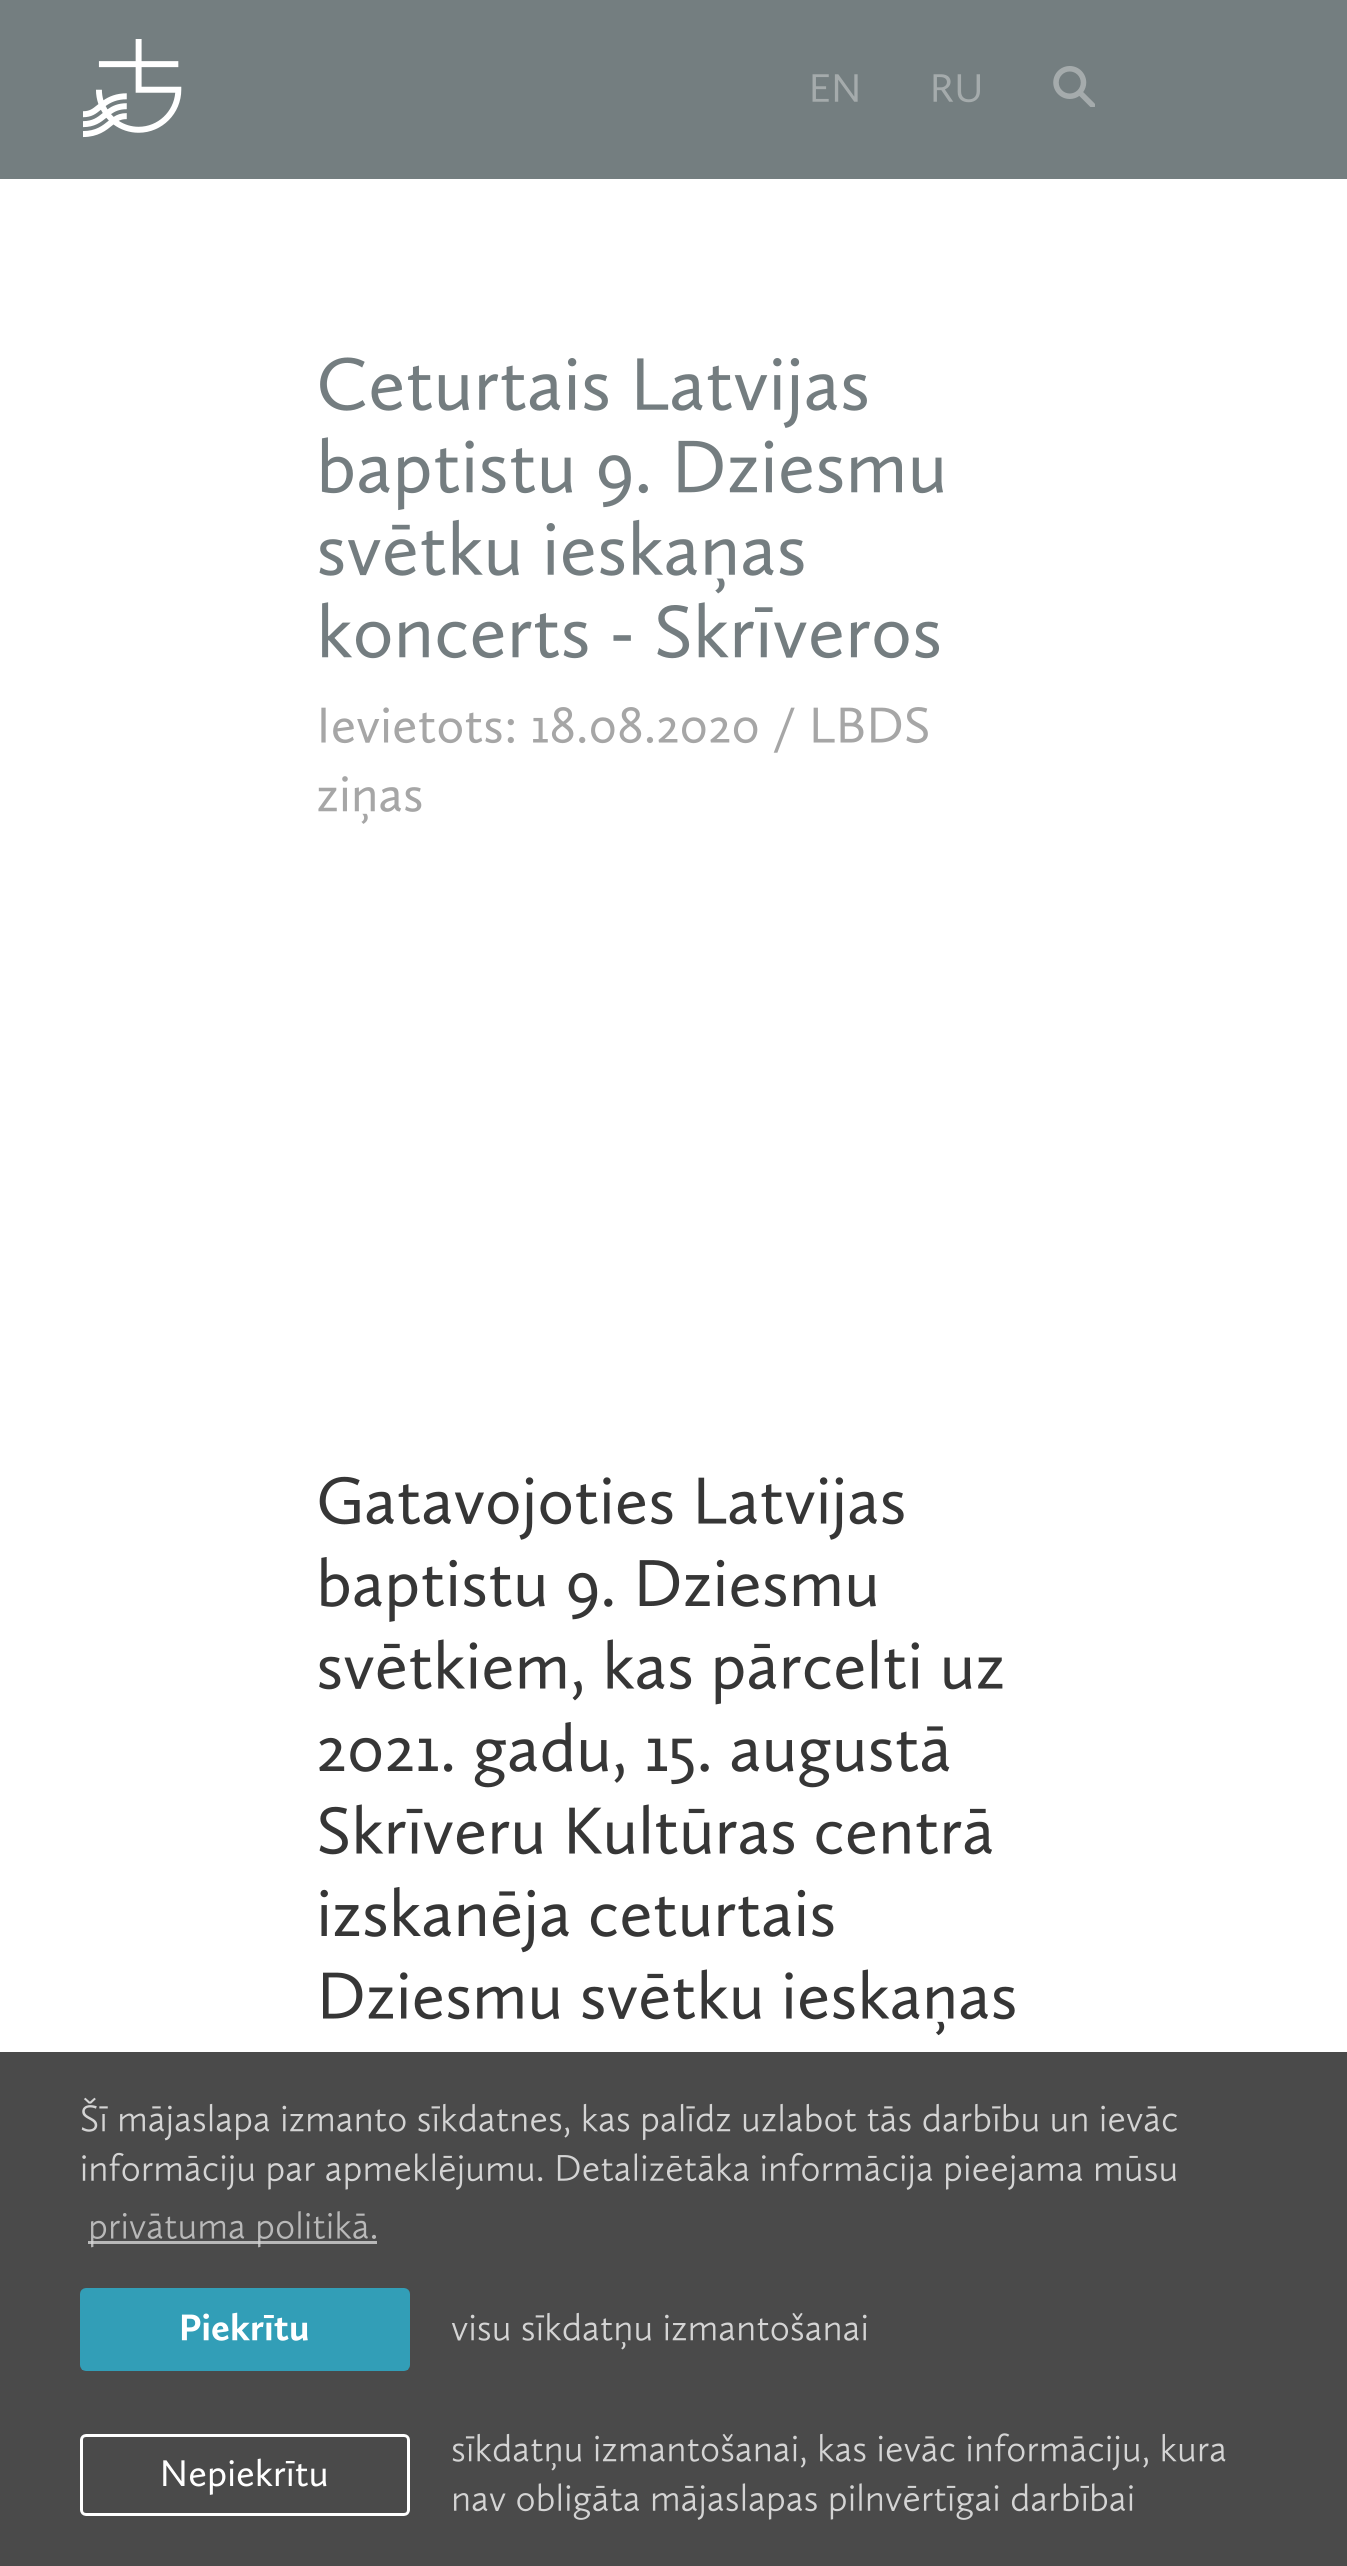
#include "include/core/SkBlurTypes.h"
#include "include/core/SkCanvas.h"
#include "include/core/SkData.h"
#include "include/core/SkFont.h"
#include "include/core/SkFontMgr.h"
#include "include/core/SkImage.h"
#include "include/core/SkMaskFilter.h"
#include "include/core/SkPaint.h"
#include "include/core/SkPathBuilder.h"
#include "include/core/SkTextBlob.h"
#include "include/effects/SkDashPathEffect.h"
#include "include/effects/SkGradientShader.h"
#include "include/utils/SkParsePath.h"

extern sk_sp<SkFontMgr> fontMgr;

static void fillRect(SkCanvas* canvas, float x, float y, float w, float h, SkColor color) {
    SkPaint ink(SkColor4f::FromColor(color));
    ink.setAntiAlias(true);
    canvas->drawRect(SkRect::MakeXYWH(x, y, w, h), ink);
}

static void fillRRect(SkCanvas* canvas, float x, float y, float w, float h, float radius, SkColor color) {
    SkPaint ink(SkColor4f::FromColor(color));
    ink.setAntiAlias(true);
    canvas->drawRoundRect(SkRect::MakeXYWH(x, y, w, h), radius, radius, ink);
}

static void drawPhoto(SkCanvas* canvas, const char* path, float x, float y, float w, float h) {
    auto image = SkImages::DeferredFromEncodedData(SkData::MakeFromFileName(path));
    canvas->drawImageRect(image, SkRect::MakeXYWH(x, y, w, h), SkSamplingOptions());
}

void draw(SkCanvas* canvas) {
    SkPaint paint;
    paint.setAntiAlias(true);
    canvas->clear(0xFFFFFFFF);
    fillRect(canvas, 0, 0, 1347, 179, 0xFF747E80);
    drawPhoto(canvas, "assets/img1.png", 83, 39, 99, 99);
    drawPhoto(canvas, "assets/img2.png", 812, 74, 46, 28);
    drawPhoto(canvas, "assets/img3.png", 933, 74, 47, 29);
    drawPhoto(canvas, "assets/img4.png", 1053, 66, 42, 41);
    drawPhoto(canvas, "assets/img5.png", 320, 357, 547, 71);
    drawPhoto(canvas, "assets/img6.png", 321, 437, 622, 74);
    drawPhoto(canvas, "assets/img7.png", 319, 519, 485, 75);
    drawPhoto(canvas, "assets/img8.png", 322, 602, 617, 57);
    drawPhoto(canvas, "assets/img9.png", 321, 707, 474, 46);
    drawPhoto(canvas, "assets/img10.png", 813, 707, 115, 37);
    drawPhoto(canvas, "assets/img11.png", 318, 776, 104, 48);
    drawPhoto(canvas, "assets/img12.png", 319, 1476, 585, 64);
    drawPhoto(canvas, "assets/img13.png", 321, 1557, 555, 65);
    drawPhoto(canvas, "assets/img14.png", 319, 1639, 684, 66);
    drawPhoto(canvas, "assets/img15.png", 319, 1722, 631, 66);
    drawPhoto(canvas, "assets/img16.png", 319, 1804, 673, 51);
    drawPhoto(canvas, "assets/img17.png", 320, 1887, 514, 66);
    drawPhoto(canvas, "assets/img18.png", 323, 1969, 692, 67);
    fillRect(canvas, 0, 2052, 1347, 514, 0xFF4A4A4A);
    drawPhoto(canvas, "assets/img19.png", 81, 2097, 1096, 44);
    drawPhoto(canvas, "assets/img20.png", 82, 2152, 1094, 38);
    fillRect(canvas, 88, 2241, 289, 3, 0xFFB8B8B8);
    drawPhoto(canvas, "assets/img21.png", 91, 2211, 285, 37);
    fillRRect(canvas, 80, 2288, 330, 83, 6, 0xFF329EB7);
    drawPhoto(canvas, "assets/img22.png", 181, 2312, 127, 29);
    drawPhoto(canvas, "assets/img23.png", 451, 2312, 416, 38);
    paint.setStroke(true);
    paint.setStrokeWidth(3);
    paint.setColor(0xFFFFFFFF);
    canvas->drawRoundRect(SkRect::MakeXYWH(81.5f, 2435.5f, 327, 79), 4.5f, 4.5f, paint);
    drawPhoto(canvas, "assets/img24.png", 163, 2458, 164, 37);
    drawPhoto(canvas, "assets/img25.png", 452, 2433, 774, 38);
    drawPhoto(canvas, "assets/img26.png", 454, 2483, 679, 37);
}
